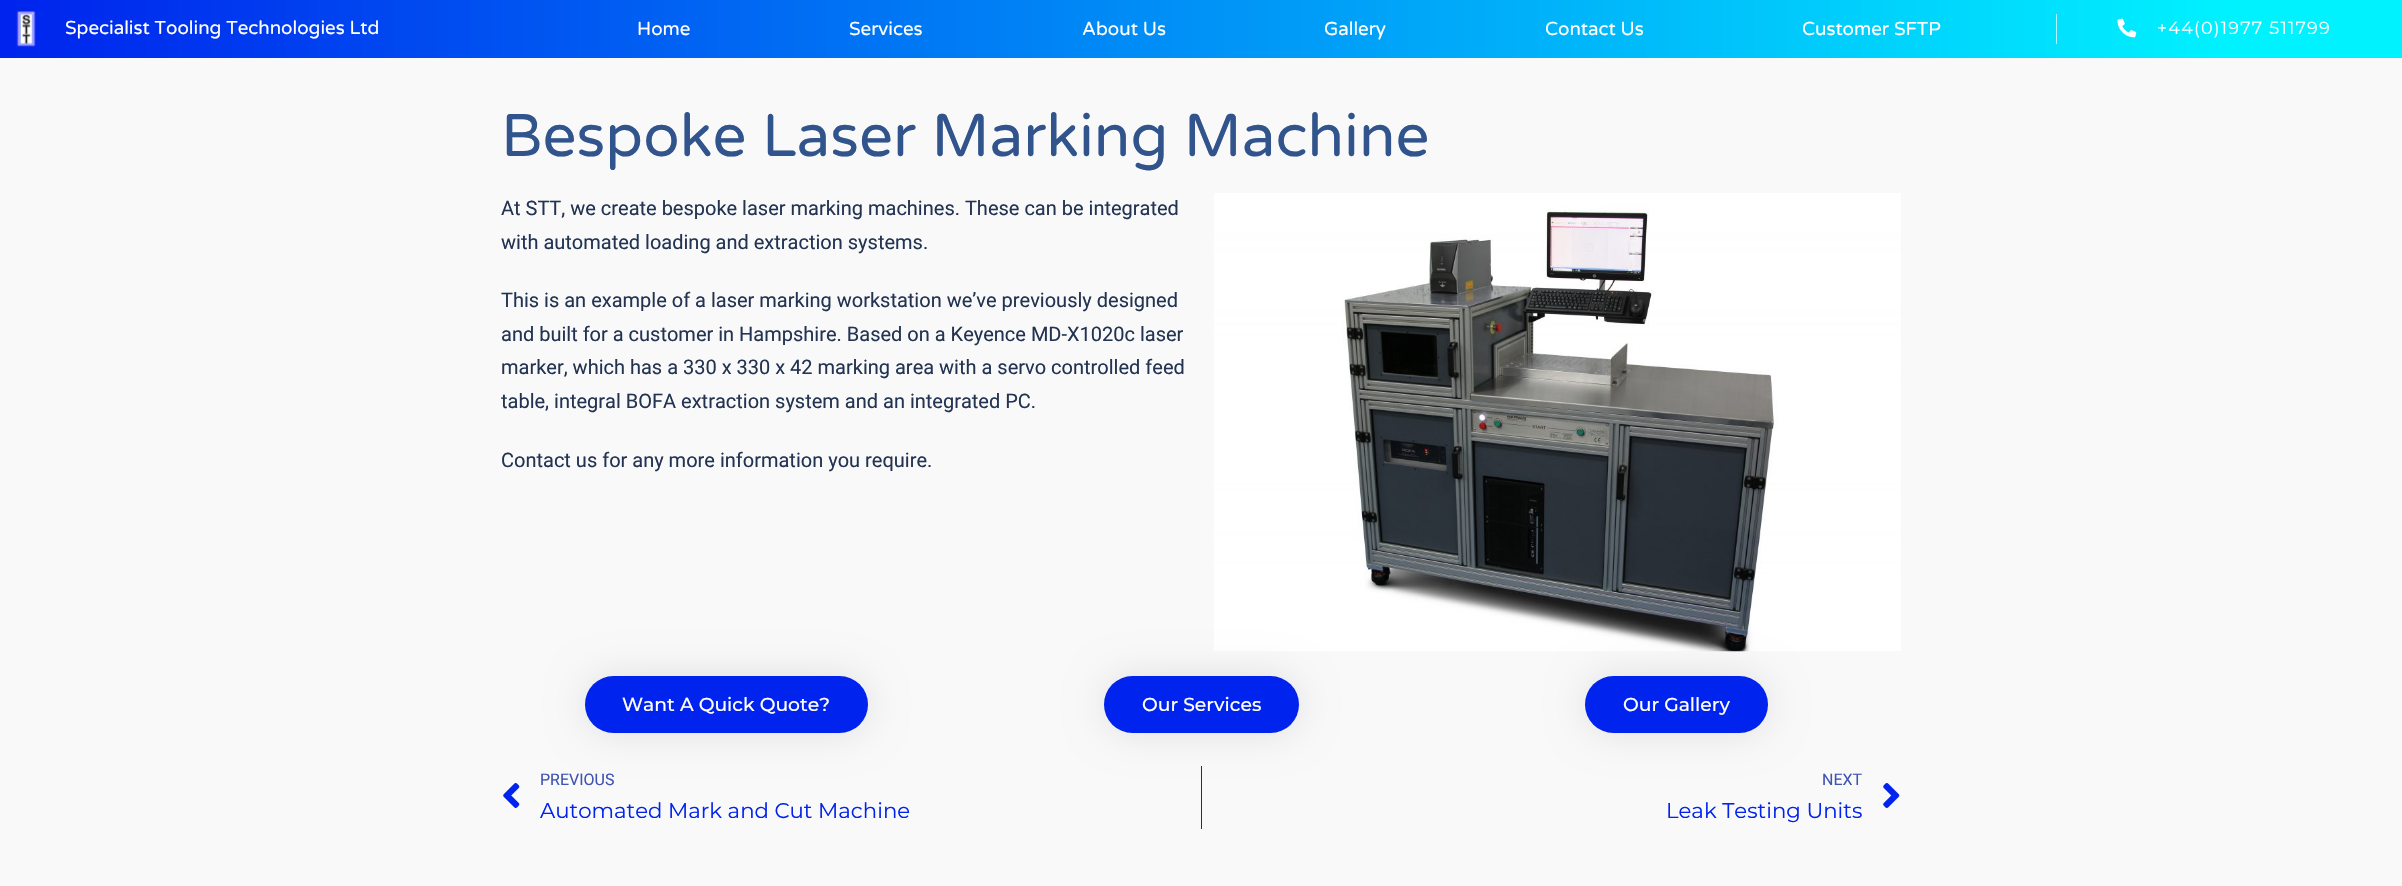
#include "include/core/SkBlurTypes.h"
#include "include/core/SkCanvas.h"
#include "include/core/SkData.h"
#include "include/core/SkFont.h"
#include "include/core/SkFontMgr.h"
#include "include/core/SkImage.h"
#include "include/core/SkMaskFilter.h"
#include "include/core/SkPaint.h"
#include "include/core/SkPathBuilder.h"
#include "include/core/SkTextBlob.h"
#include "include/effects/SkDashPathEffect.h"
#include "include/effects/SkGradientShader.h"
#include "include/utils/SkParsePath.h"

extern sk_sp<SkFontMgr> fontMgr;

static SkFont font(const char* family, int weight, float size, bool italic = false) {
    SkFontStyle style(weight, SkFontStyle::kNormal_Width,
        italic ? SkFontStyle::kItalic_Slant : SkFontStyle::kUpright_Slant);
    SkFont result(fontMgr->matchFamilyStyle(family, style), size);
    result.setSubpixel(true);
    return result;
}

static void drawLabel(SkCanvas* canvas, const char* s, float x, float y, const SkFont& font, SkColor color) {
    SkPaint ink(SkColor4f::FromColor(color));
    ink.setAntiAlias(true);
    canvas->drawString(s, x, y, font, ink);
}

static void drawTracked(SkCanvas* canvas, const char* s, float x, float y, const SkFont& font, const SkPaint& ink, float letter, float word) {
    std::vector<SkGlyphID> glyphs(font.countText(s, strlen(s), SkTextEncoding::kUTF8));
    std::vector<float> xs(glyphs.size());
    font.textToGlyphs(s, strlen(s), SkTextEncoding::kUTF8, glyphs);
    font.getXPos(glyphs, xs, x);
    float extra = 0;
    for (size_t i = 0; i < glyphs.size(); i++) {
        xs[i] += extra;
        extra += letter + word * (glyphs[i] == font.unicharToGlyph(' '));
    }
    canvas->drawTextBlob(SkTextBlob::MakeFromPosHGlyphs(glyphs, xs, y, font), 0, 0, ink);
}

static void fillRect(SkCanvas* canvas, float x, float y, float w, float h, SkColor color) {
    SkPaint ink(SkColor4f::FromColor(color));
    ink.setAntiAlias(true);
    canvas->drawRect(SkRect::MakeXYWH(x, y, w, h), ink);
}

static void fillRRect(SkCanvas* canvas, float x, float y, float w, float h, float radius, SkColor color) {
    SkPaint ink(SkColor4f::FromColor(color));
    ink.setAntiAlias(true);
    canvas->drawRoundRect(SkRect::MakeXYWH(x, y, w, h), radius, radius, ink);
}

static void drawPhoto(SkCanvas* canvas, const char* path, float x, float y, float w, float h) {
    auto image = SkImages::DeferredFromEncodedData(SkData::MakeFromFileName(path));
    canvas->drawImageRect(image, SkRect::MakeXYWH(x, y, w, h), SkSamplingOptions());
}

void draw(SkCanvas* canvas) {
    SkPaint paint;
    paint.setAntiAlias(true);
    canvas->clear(0xFFF9F9F9);
    {
        const SkColor colors[] = {0xFF0023ED, 0xFF00F2FF};
        const float stops[] = {0, 0.93f};
        const SkPoint ends[] = {{0, 29}, {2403, 29}};
        paint.setShader(SkGradientShader::MakeLinear(ends, colors, stops, 2, SkTileMode::kClamp));
        paint.setAlpha(255);
    }
    canvas->drawRect(SkRect::MakeXYWH(0, 0, 2402, 58), paint);
    drawPhoto(canvas, "assets/img1.png", 16, 11, 20, 36);
    SkFont font1 = font("Varela Round", 400, 18.75f);
    drawLabel(canvas, "Specialist Tooling Technologies Ltd", 65, 34, font1, 0xFFFFFFFF);
    drawLabel(canvas, "Home", 637, 35, font1, 0xFFFFFFFF);
    drawLabel(canvas, "Services", 849, 35, font1, 0xFFFFFFFF);
    drawLabel(canvas, "About Us", 1082, 35, font1, 0xFFFFFFFF);
    drawLabel(canvas, "Gallery", 1324, 35, font1, 0xFFFFFFFF);
    drawLabel(canvas, "Contact Us", 1545, 35, font1, 0xFFFFFFFF);
    drawLabel(canvas, "Customer SFTP", 1802, 35, font1, 0xFFFFFFFF);
    fillRect(canvas, 2056, 14, 1, 30, 0xFFB3F6FF);
    drawPhoto(canvas, "assets/img2.png", 2117, 18, 20, 20);
    SkFont font2 = font("Montserrat", 400, 17.5f);
    paint.setShader(nullptr);
    paint.setColor(0xFFFFFFFF);
    drawTracked(canvas, "+44(0)1977 511799", 2157, 34, font2, paint, 1.25f, 0);
    SkFont font3 = font("Varela Round", 400, 60);
    drawLabel(canvas, "Bespoke Laser Marking Machine", 501, 156, font3, 0xFF31548C);
    SkFont font4 = font("Roboto", 400, 20);
    drawLabel(canvas, "At STT, we create bespoke laser marking machines. These can be integrated", 501, 215, font4, 0xFF233452);
    drawLabel(canvas, "with automated loading and extraction systems.", 501, 249, font4, 0xFF233452);
    drawLabel(canvas, "This is an example of a laser marking workstation we’ve previously designed", 501, 307, font4, 0xFF233452);
    drawLabel(canvas, "and built for a customer in Hampshire. Based on a Keyence MD-X1020c laser", 501, 341, font4, 0xFF233452);
    drawLabel(canvas, "marker, which has a 330 x 330 x 42 marking area with a servo controlled feed", 501, 374, font4, 0xFF233452);
    drawLabel(canvas, "table, integral BOFA extraction system and an integrated PC.", 501, 408, font4, 0xFF233452);
    drawLabel(canvas, "Contact us for any more information you require.", 501, 467, font4, 0xFF233452);
    drawPhoto(canvas, "assets/img3.png", 1214, 193, 687, 459);
    paint.setColor(0x1A000000);
    paint.setMaskFilter(SkMaskFilter::MakeBlur(kNormal_SkBlurStyle, 19));
    canvas->drawRoundRect(SkRect::MakeXYWH(585, 676, 283, 57), 28.5f, 28.5f, paint);
    paint.setMaskFilter(nullptr);
    fillRRect(canvas, 585, 676, 283, 57, 28.5f, 0xFF0023ED);
    SkFont font5 = font("Montserrat", 500, 18.75f);
    drawLabel(canvas, "Want A Quick Quote?", 622, 711, font5, 0xFFFFFFFF);
    paint.setMaskFilter(SkMaskFilter::MakeBlur(kNormal_SkBlurStyle, 19));
    canvas->drawRoundRect(SkRect::MakeXYWH(1104, 676, 195, 57), 28.5f, 28.5f, paint);
    paint.setMaskFilter(nullptr);
    fillRRect(canvas, 1104, 676, 195, 57, 28.5f, 0xFF0023ED);
    drawLabel(canvas, "Our Services", 1142, 711, font5, 0xFFFFFFFF);
    paint.setMaskFilter(SkMaskFilter::MakeBlur(kNormal_SkBlurStyle, 19));
    canvas->drawRoundRect(SkRect::MakeXYWH(1585, 676, 183, 57), 28.5f, 28.5f, paint);
    paint.setMaskFilter(nullptr);
    fillRRect(canvas, 1585, 676, 183, 57, 28.5f, 0xFF0023ED);
    drawLabel(canvas, "Our Gallery", 1623, 711, font5, 0xFFFFFFFF);
    drawPhoto(canvas, "assets/img4.png", 503, 783, 17, 25);
    SkFont font6 = font("Roboto", 400, 16);
    drawLabel(canvas, "PREVIOUS", 540, 785, font6, 0xFF4054B2);
    SkFont font7 = font("Montserrat", 400, 21.25f);
    drawLabel(canvas, "Automated Mark and Cut Machine", 540, 818, font7, 0xFF0023ED);
    fillRect(canvas, 1201, 766, 1, 63, 0xFF0023ED);
    drawLabel(canvas, "NEXT", 1822, 785, font6, 0xFF4054B2);
    drawLabel(canvas, "Leak Testing Units", 1666, 818, font7, 0xFF0023ED);
    drawPhoto(canvas, "assets/img5.png", 1883, 783, 17, 25);
}
